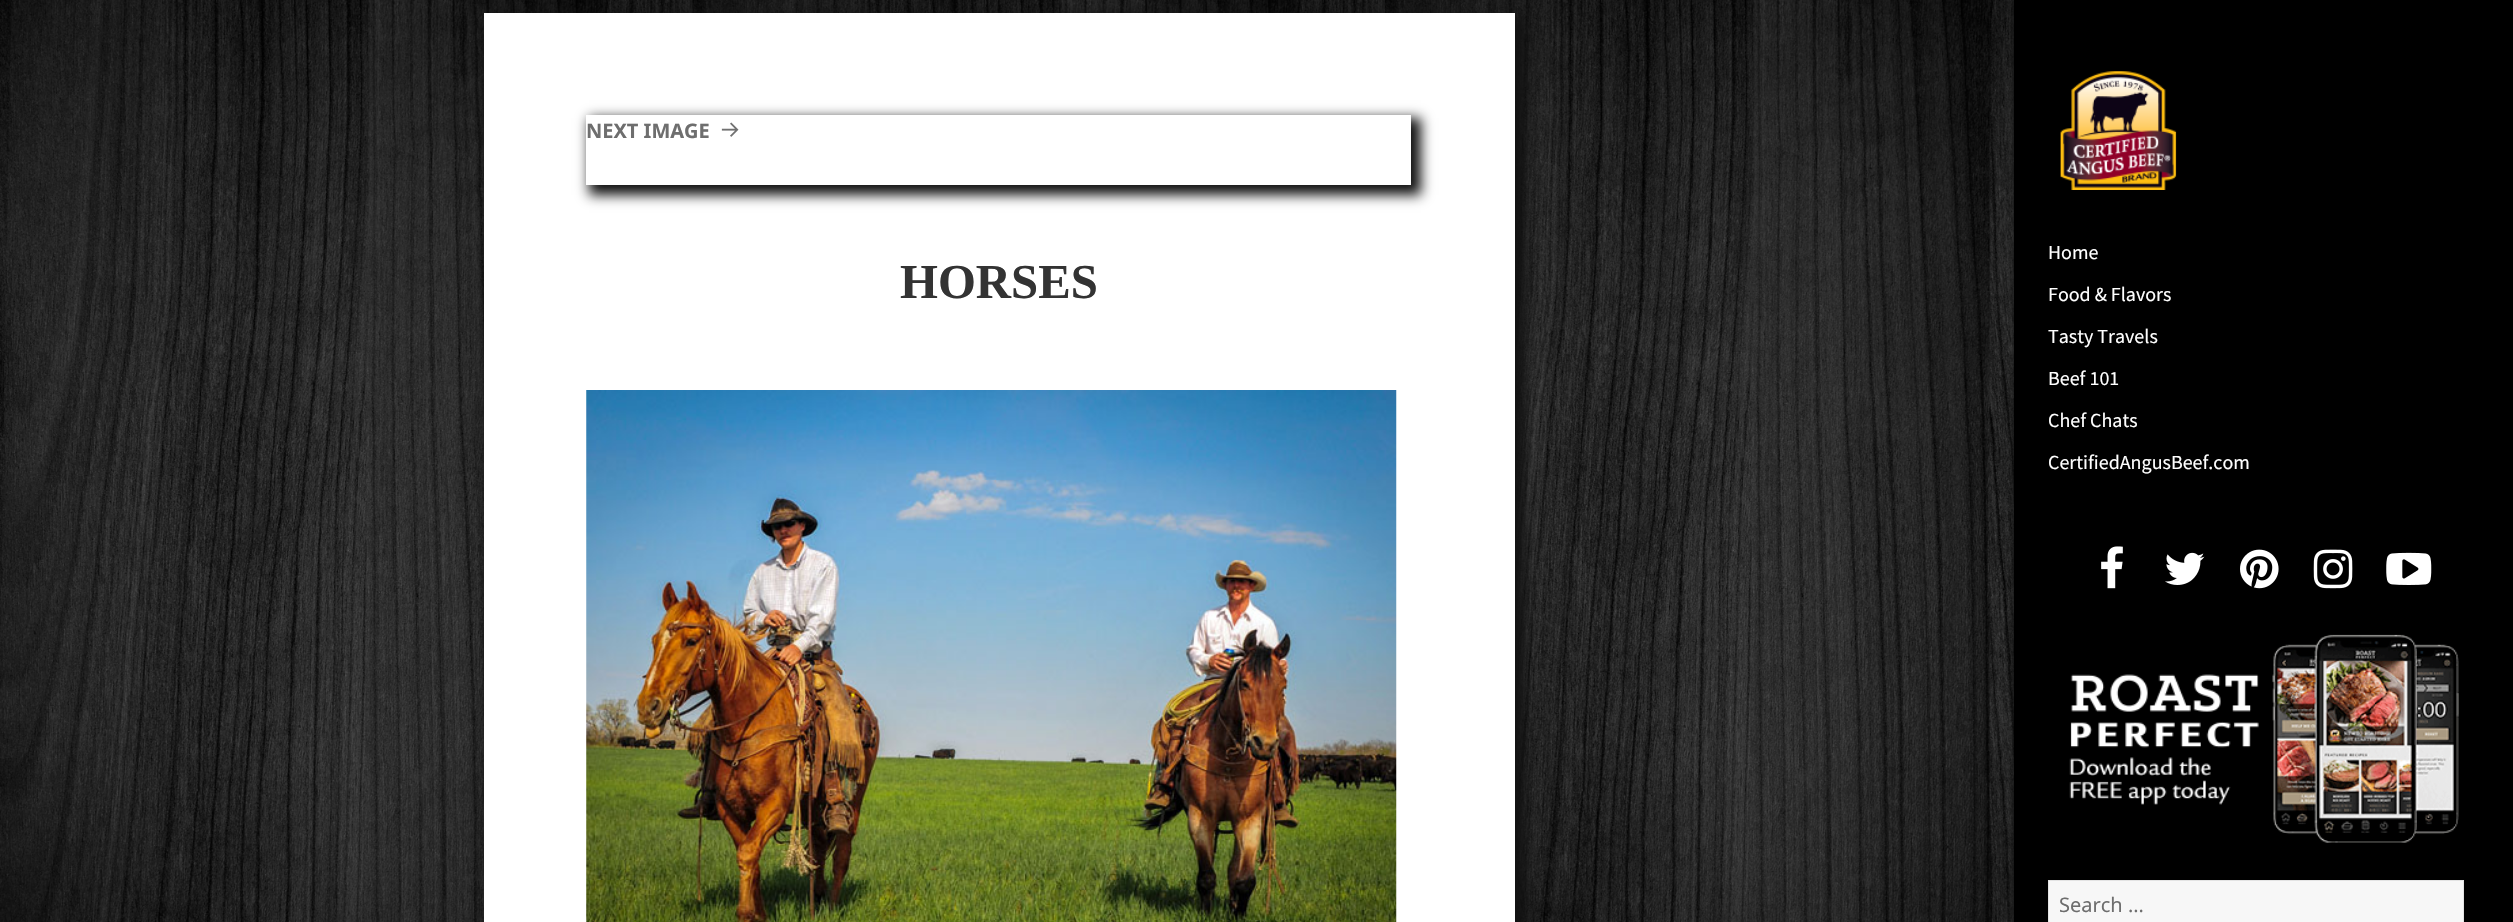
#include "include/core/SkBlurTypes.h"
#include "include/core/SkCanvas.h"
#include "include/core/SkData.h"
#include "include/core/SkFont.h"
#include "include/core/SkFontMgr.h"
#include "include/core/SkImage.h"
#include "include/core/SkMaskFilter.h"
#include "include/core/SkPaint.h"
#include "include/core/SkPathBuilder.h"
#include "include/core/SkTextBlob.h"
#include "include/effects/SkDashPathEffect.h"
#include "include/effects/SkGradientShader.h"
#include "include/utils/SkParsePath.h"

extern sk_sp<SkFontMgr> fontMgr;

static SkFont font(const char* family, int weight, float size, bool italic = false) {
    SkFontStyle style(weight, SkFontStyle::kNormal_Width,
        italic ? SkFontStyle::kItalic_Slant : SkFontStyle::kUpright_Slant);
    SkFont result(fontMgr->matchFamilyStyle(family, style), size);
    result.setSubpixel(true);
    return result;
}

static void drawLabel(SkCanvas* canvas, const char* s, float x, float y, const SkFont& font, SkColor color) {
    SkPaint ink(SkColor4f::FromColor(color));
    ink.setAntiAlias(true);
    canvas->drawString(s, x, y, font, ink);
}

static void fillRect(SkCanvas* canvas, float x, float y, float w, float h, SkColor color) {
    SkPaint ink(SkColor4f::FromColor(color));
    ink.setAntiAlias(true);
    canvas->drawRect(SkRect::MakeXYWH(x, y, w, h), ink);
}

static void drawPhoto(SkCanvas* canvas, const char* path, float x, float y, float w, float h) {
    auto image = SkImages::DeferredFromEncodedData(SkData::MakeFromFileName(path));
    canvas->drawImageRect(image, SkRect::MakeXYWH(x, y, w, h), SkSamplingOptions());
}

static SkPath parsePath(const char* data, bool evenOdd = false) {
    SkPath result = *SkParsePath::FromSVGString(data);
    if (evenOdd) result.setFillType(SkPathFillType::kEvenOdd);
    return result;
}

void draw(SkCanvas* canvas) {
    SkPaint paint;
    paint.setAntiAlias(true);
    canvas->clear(0xFFFFFFFF);
    drawPhoto(canvas, "assets/img1.png", 0, 0, 2014, 922);
    paint.setColor(0xFF111111);
    paint.setMaskFilter(SkMaskFilter::MakeBlur(kNormal_SkBlurStyle, 6));
    canvas->drawRect(SkRect::MakeXYWH(486, 15, 1039, 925), paint);
    paint.setMaskFilter(nullptr);
    fillRect(canvas, 484, 13, 1031, 909, 0xFFFFFFFF);
    canvas->save();
    canvas->clipPath(parsePath("M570 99H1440V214H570ZM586 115H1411V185H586Z", true), true);
    paint.setMaskFilter(SkMaskFilter::MakeBlur(kNormal_SkBlurStyle, 6));
    canvas->drawRect(SkRect::MakeXYWH(589, 118, 832, 77), paint);
    paint.setMaskFilter(nullptr);
    canvas->restore();
    SkFont font1 = font("Noto Sans", 700, 20);
    drawLabel(canvas, "NEXT IMAGE", 586, 138, font1, 0xFF6E6E6E);
    drawPhoto(canvas, "assets/img2.png", 721, 122, 18, 15);
    SkFont font2 = font("Liberation Serif", 700, 48.75f);
    drawLabel(canvas, "HORSES", 900, 298, font2, 0xFF333333);
    drawPhoto(canvas, "assets/img3.png", 586, 390, 811, 532);
    paint.setMaskFilter(SkMaskFilter::MakeBlur(kNormal_SkBlurStyle, 3));
    canvas->drawRect(SkRect::MakeXYWH(2014, 0, 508, 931), paint);
    paint.setMaskFilter(nullptr);
    fillRect(canvas, 2014, 0, 499, 922, 0xFF000000);
    drawPhoto(canvas, "assets/img4.png", 2060, 71, 117, 119);
    SkFont font3 = font("Source Sans Pro", 400, 20);
    drawLabel(canvas, "Home", 2048, 259, font3, 0xFFFFFFFF);
    drawLabel(canvas, "Food & Flavors", 2048, 301, font3, 0xFFFFFFFF);
    drawLabel(canvas, "Tasty Travels", 2048, 343, font3, 0xFFFFFFFF);
    drawLabel(canvas, "Beef 101", 2048, 385, font3, 0xFFFFFFFF);
    drawLabel(canvas, "Chef Chats", 2048, 427, font3, 0xFFFFFFFF);
    drawLabel(canvas, "CertifiedAngusBeef.com", 2048, 469, font3, 0xFFFFFFFF);
    drawPhoto(canvas, "assets/img5.png", 2101, 546, 22, 43);
    drawPhoto(canvas, "assets/img6.png", 2165, 552, 40, 33);
    drawPhoto(canvas, "assets/img7.png", 2240, 549, 39, 40);
    drawPhoto(canvas, "assets/img8.png", 2313, 549, 40, 40);
    drawPhoto(canvas, "assets/img9.png", 2386, 552, 46, 33);
    drawPhoto(canvas, "assets/img10.png", 2069, 634, 390, 209);
    paint.setColor(0xFFF7F7F7);
    canvas->drawRect(SkRect::MakeXYWH(2048.5f, 880.5f, 415, 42), paint);
    paint.setStroke(true);
    paint.setStrokeWidth(1);
    paint.setColor(0xFFE3E3E3);
    canvas->drawRect(SkRect::MakeXYWH(2048.5f, 880.5f, 415, 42), paint);
    SkFont font4 = font("Noto Sans", 400, 20);
    drawLabel(canvas, "Search …", 2059, 912, font4, 0xFF6E6E6E);
}
